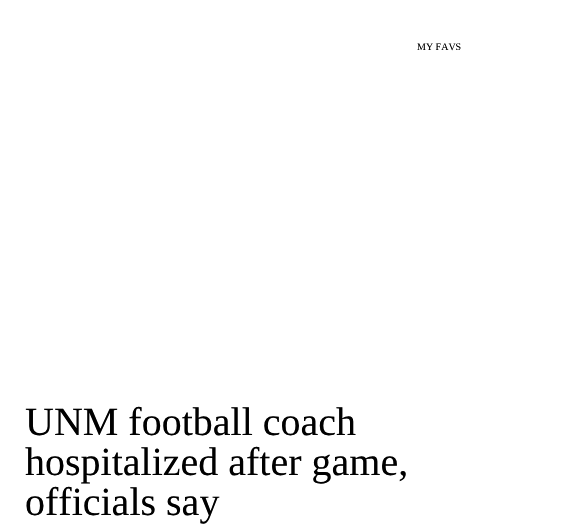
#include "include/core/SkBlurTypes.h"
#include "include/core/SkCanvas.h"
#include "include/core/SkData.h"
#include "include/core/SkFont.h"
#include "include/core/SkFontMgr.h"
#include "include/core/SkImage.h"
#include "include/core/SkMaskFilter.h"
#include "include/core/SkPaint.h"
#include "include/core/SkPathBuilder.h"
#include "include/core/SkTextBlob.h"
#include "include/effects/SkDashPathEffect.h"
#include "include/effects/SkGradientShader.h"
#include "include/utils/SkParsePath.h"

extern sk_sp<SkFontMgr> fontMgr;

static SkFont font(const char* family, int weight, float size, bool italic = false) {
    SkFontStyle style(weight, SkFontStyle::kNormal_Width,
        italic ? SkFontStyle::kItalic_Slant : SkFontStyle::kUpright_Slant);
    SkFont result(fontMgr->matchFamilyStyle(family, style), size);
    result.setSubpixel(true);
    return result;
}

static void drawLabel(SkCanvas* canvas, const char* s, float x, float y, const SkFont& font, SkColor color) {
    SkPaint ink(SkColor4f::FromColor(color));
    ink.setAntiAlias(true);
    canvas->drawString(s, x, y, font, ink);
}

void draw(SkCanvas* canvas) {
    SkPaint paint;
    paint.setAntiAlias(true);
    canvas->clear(0xFFFFFFFF);
    SkFont font1 = font("Liberation Serif", 400, 10);
    drawLabel(canvas, "MY FAVS", 417, 50, font1, 0xFF000000);
    SkFont font2 = font("Liberation Serif", 400, 40);
    drawLabel(canvas, "UNM football coach", 25, 435, font2, 0xFF000000);
    drawLabel(canvas, "hospitalized after game,", 25, 475, font2, 0xFF000000);
    drawLabel(canvas, "officials say", 25, 515, font2, 0xFF000000);
}
